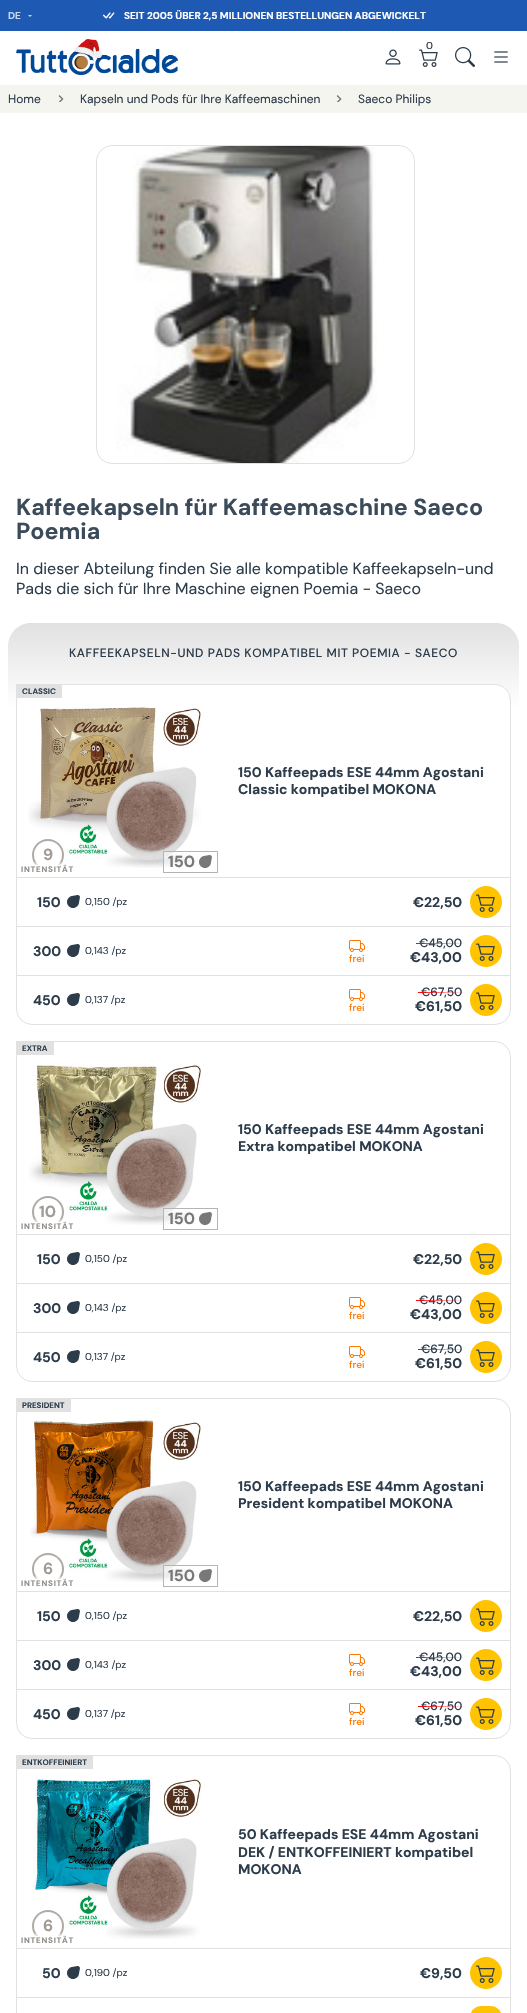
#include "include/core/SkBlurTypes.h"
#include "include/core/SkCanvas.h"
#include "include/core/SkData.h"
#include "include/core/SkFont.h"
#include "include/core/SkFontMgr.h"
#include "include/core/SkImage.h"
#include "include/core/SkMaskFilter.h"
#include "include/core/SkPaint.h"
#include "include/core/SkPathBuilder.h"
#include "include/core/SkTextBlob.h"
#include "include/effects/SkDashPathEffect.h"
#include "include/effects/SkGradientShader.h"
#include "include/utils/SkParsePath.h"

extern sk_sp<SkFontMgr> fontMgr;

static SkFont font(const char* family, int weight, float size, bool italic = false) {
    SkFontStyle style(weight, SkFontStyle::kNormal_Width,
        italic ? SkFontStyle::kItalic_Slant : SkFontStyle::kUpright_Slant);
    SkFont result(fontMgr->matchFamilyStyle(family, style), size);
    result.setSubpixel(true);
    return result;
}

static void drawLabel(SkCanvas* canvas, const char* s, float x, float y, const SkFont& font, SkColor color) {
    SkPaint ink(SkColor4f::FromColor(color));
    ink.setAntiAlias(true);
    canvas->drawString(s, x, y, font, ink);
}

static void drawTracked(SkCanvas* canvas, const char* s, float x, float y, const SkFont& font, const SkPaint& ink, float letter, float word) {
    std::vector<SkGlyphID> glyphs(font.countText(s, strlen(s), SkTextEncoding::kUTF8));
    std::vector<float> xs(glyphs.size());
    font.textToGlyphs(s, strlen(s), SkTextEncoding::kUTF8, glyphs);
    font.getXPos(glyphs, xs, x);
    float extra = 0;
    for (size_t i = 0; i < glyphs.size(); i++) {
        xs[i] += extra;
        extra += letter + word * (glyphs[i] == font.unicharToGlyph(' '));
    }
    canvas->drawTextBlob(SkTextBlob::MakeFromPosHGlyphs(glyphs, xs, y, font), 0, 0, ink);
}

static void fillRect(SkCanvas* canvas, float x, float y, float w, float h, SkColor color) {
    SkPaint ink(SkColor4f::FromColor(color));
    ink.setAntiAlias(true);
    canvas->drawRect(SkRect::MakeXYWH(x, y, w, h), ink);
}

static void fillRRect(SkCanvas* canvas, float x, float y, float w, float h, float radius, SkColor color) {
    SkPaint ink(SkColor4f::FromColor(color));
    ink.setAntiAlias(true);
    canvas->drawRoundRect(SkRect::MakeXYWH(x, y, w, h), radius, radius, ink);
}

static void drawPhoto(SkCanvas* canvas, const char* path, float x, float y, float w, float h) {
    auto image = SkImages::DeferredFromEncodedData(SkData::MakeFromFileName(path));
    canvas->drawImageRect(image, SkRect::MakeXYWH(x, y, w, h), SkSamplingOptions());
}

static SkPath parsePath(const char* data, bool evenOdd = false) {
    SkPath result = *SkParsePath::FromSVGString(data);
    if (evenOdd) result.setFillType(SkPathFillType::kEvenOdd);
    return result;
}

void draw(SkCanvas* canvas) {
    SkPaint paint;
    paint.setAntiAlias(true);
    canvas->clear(0xFFFFFFFF);
    fillRect(canvas, 0, 0, 527, 31, 0xFF1E5AB4);
    SkFont font1 = font("DM Sans", 700, 10);
    drawLabel(canvas, "DE", 8, 19, font1, 0xFFC7D6EC);
    paint.setColor(0xFFC7D6EC);
    canvas->drawPath(parsePath("M28 15H32L30 17Z"), paint);
    drawPhoto(canvas, "assets/img1.png", 103, 12, 12, 7);
    drawLabel(canvas, "SEIT 2005 ÜBER 2,5 MILLIONEN BESTELLUNGEN ABGEWICKELT", 124, 19, font1, 0xFFFFFFFF);
    drawPhoto(canvas, "assets/img2.png", 16, 39, 162, 36);
    drawPhoto(canvas, "assets/img3.png", 419, 49, 19, 18);
    SkFont font2 = font("DM Sans", 500, 10);
    drawLabel(canvas, "0", 426, 49, font2, 0xFF2D3C4B);
    drawPhoto(canvas, "assets/img4.png", 385, 49, 16, 16);
    drawPhoto(canvas, "assets/img5.png", 455, 47, 20, 20);
    drawPhoto(canvas, "assets/img6.png", 494, 51, 14, 12);
    fillRect(canvas, 0, 85, 527, 28, 0xFFF5F5F0);
    SkFont font3 = font("DM Sans", 400, 12);
    drawLabel(canvas, "Home", 8, 103, font3, 0xFF2D3C4B);
    drawPhoto(canvas, "assets/img7.png", 58, 95, 6, 7);
    drawLabel(canvas, "Kapseln und Pods für Ihre Kaffeemaschinen", 80, 103, font3, 0xFF2D3C4B);
    drawPhoto(canvas, "assets/img8.png", 336, 95, 6, 7);
    drawLabel(canvas, "Saeco Philips", 358, 103, font3, 0xFF2D3C4B);
    paint.setStroke(true);
    paint.setStrokeWidth(1);
    paint.setColor(0xFFE1E1E1);
    canvas->drawRoundRect(SkRect::MakeXYWH(96.5f, 145.5f, 318, 318), 15.5f, 15.5f, paint);
    drawPhoto(canvas, "assets/img9.png", 116, 146, 261, 317);
    SkFont font4 = font("DM Sans", 700, 23.25f);
    drawLabel(canvas, "Kaffeekapseln für Kaffeemaschine Saeco", 16, 515, font4, 0xFF3C4B5A);
    drawLabel(canvas, "Poemia", 16, 539, font4, 0xFF3C4B5A);
    SkFont font5 = font("DM Sans", 400, 16);
    drawLabel(canvas, "In dieser Abteilung finden Sie alle kompatible Kaffeekapseln-und", 16, 574, font5, 0xFF2D3C4B);
    drawLabel(canvas, "Pads die sich für Ihre Maschine eignen Poemia - Saeco", 16, 594, font5, 0xFF2D3C4B);
    paint.setStroke(false);
    {
        const SkColor colors[] = {0xFFE1E1E1, 0xFFFFFFFF};
        const float stops[] = {0, 1};
        const SkPoint ends[] = {{264, 623}, {264, 708}};
        paint.setShader(SkGradientShader::MakeLinear(ends, colors, stops, 2, SkTileMode::kClamp));
        paint.setAlpha(255);
    }
    canvas->drawPath(parsePath("M31 623H496C508.5 623 519 633.5 519 646V708H8V646C8 633.5 18.5 623 31 623Z"), paint);
    SkFont font6 = font("DM Sans", 500, 12);
    paint.setShader(nullptr);
    paint.setColor(0xFF2D3C4B);
    drawTracked(canvas, "KAFFEEKAPSELN-UND PADS KOMPATIBEL MIT POEMIA - SAECO", 69, 657, font6, paint, 0.6f, 0);
    paint.setColor(0xFFFFFFFF);
    canvas->drawRoundRect(SkRect::MakeXYWH(16.5f, 684.5f, 494, 340), 15.5f, 15.5f, paint);
    paint.setStroke(true);
    paint.setColor(0xFFE1E1E1);
    canvas->drawRoundRect(SkRect::MakeXYWH(16.5f, 684.5f, 494, 340), 15.5f, 15.5f, paint);
    fillRect(canvas, 16, 684, 46, 14, 0xFFE1E1E1);
    SkFont font7 = font("DM Sans", 700, 8);
    drawLabel(canvas, "CLASSIC", 22, 694, font7, 0xFF2D3C4B);
    drawPhoto(canvas, "assets/img10.png", 28, 707, 174, 161);
    paint.setStroke(false);
    {
        const SkColor colors[] = {0xFFAFAAA5, 0xFFFFFFFF};
        const float stops[] = {0.7f, 0.85f};
        const SkPoint ends[] = {{48, 839}, {48, 871}};
        paint.setShader(SkGradientShader::MakeLinear(ends, colors, stops, 2, SkTileMode::kClamp));
        paint.setAlpha(255);
    }
    canvas->drawCircle(48, 855, 16, paint);
    paint.setShader(nullptr);
    paint.setColor(0xFFFFFFFF);
    canvas->drawCircle(48, 855, 14, paint);
    SkFont font8 = font("DM Sans", 700, 16);
    drawLabel(canvas, "9", 43, 860, font8, 0xFFA09B96);
    fillRect(canvas, 36, 865, 24, 1, 0xFFFFFFFF);
    paint.setColor(0xFF918C87);
    drawTracked(canvas, "INTENSITÄT", 21, 872, font7, paint, 0.75f, 0);
    fillRect(canvas, 164, 852, 32, 16, 0x80FFFFFF);
    paint.setStroke(true);
    paint.setColor(0xFFB4B4B4);
    canvas->drawRect(SkRect::MakeXYWH(163.5f, 851.5f, 54, 21), paint);
    drawLabel(canvas, "150", 168, 867, font8, 0xFF787878);
    drawPhoto(canvas, "assets/img11.png", 199, 855, 13, 13);
    SkFont font9 = font("DM Sans", 700, 14);
    drawLabel(canvas, "150 Kaffeepads ESE 44mm Agostani", 238, 777, font9, 0xFF2D3C4B);
    drawLabel(canvas, "Classic kompatibel MOKONA", 238, 794, font9, 0xFF2D3C4B);
    fillRect(canvas, 17, 877, 493, 1, 0xFFE1E1E1);
    drawLabel(canvas, "150", 37, 907, font9, 0xFF2D3C4B);
    drawPhoto(canvas, "assets/img12.png", 67, 895, 13, 13);
    SkFont font10 = font("DM Sans", 400, 10);
    drawLabel(canvas, "0,150 /pz", 85, 905, font10, 0xFF2D3C4B);
    drawLabel(canvas, "€22,50", 413, 907, font9, 0xFF2D3C4B);
    paint.setStroke(false);
    paint.setColor(0xFFFFC300);
    canvas->drawCircle(486, 902, 16, paint);
    drawPhoto(canvas, "assets/img13.png", 476, 894, 19, 18);
    fillRect(canvas, 17, 926, 493, 1, 0xFFE1E1E1);
    drawLabel(canvas, "300", 33, 956, font9, 0xFF2D3C4B);
    drawPhoto(canvas, "assets/img12.png", 67, 944, 13, 13);
    drawLabel(canvas, "0,143 /pz", 85, 954, font10, 0xFF2D3C4B);
    drawLabel(canvas, "€45,00", 419, 947, font6, 0xFF2D3C4B);
    {
        const SkColor colors[] = {0xFFFF0000, 0x00FF0000};
        const float stops[] = {0, 1};
        const SkPoint ends[] = {{416, 944}, {465, 944}};
        paint.setShader(SkGradientShader::MakeLinear(ends, colors, stops, 2, SkTileMode::kClamp));
        paint.setAlpha(255);
    }
    canvas->drawRect(SkRect::MakeXYWH(416, 943, 49, 1), paint);
    drawLabel(canvas, "€43,00", 410, 962, font9, 0xFF2D3C4B);
    paint.setShader(nullptr);
    paint.setColor(0xFFFFC300);
    canvas->drawCircle(486, 951, 16, paint);
    drawPhoto(canvas, "assets/img13.png", 476, 943, 19, 18);
    drawPhoto(canvas, "assets/img14.png", 349, 940, 16, 12);
    drawLabel(canvas, "frei", 349, 962, font2, 0xFFFF7800);
    fillRect(canvas, 17, 975, 493, 1, 0xFFE1E1E1);
    drawLabel(canvas, "450", 33, 1005, font9, 0xFF2D3C4B);
    drawPhoto(canvas, "assets/img12.png", 67, 993, 13, 13);
    drawLabel(canvas, "0,137 /pz", 85, 1003, font10, 0xFF2D3C4B);
    drawLabel(canvas, "€67,50", 421, 996, font6, 0xFF2D3C4B);
    {
        const SkColor colors[] = {0xFFFF0000, 0x00FF0000};
        const float stops[] = {0, 1};
        const SkPoint ends[] = {{418, 993}, {465, 993}};
        paint.setShader(SkGradientShader::MakeLinear(ends, colors, stops, 2, SkTileMode::kClamp));
        paint.setAlpha(255);
    }
    canvas->drawRect(SkRect::MakeXYWH(418, 992, 47, 1), paint);
    drawLabel(canvas, "€61,50", 415, 1011, font9, 0xFF2D3C4B);
    paint.setShader(nullptr);
    paint.setColor(0xFFFFC300);
    canvas->drawCircle(486, 1000, 16, paint);
    drawPhoto(canvas, "assets/img13.png", 476, 992, 19, 18);
    drawPhoto(canvas, "assets/img14.png", 349, 989, 16, 12);
    drawLabel(canvas, "frei", 349, 1011, font2, 0xFFFF7800);
    paint.setStroke(true);
    paint.setColor(0xFFE1E1E1);
    canvas->drawRoundRect(SkRect::MakeXYWH(16.5f, 1041.5f, 494, 340), 15.5f, 15.5f, paint);
    fillRect(canvas, 16, 1041, 38, 14, 0xFFE1E1E1);
    drawLabel(canvas, "EXTRA", 22, 1051, font7, 0xFF2D3C4B);
    drawPhoto(canvas, "assets/img15.png", 29, 1064, 173, 161);
    paint.setStroke(false);
    {
        const SkColor colors[] = {0xFFAFAAA5, 0xFFFFFFFF};
        const float stops[] = {0.7f, 0.85f};
        const SkPoint ends[] = {{48, 1196}, {48, 1228}};
        paint.setShader(SkGradientShader::MakeLinear(ends, colors, stops, 2, SkTileMode::kClamp));
        paint.setAlpha(255);
    }
    canvas->drawCircle(48, 1212, 16, paint);
    paint.setShader(nullptr);
    paint.setColor(0xFFFFFFFF);
    canvas->drawCircle(48, 1212, 14, paint);
    drawLabel(canvas, "10", 39, 1217, font8, 0xFFA09B96);
    fillRect(canvas, 36, 1222, 24, 1, 0xFFFFFFFF);
    paint.setColor(0xFF918C87);
    drawTracked(canvas, "INTENSITÄT", 21, 1229, font7, paint, 0.75f, 0);
    fillRect(canvas, 164, 1209, 33, 16, 0x80FFFFFF);
    paint.setStroke(true);
    paint.setColor(0xFFB4B4B4);
    canvas->drawRect(SkRect::MakeXYWH(163.5f, 1208.5f, 54, 21), paint);
    drawLabel(canvas, "150", 168, 1224, font8, 0xFF787878);
    drawPhoto(canvas, "assets/img11.png", 199, 1212, 13, 13);
    drawLabel(canvas, "150 Kaffeepads ESE 44mm Agostani", 238, 1134, font9, 0xFF2D3C4B);
    drawLabel(canvas, "Extra kompatibel MOKONA", 238, 1151, font9, 0xFF2D3C4B);
    fillRect(canvas, 17, 1234, 493, 1, 0xFFE1E1E1);
    drawLabel(canvas, "150", 37, 1264, font9, 0xFF2D3C4B);
    drawPhoto(canvas, "assets/img12.png", 67, 1252, 13, 13);
    drawLabel(canvas, "0,150 /pz", 85, 1262, font10, 0xFF2D3C4B);
    drawLabel(canvas, "€22,50", 413, 1264, font9, 0xFF2D3C4B);
    paint.setStroke(false);
    paint.setColor(0xFFFFC300);
    canvas->drawCircle(486, 1259, 16, paint);
    drawPhoto(canvas, "assets/img13.png", 476, 1251, 19, 18);
    fillRect(canvas, 17, 1283, 493, 1, 0xFFE1E1E1);
    drawLabel(canvas, "300", 33, 1313, font9, 0xFF2D3C4B);
    drawPhoto(canvas, "assets/img12.png", 67, 1301, 13, 13);
    drawLabel(canvas, "0,143 /pz", 85, 1311, font10, 0xFF2D3C4B);
    drawLabel(canvas, "€45,00", 419, 1304, font6, 0xFF2D3C4B);
    {
        const SkColor colors[] = {0xFFFF0000, 0x00FF0000};
        const float stops[] = {0, 1};
        const SkPoint ends[] = {{416, 1301}, {465, 1301}};
        paint.setShader(SkGradientShader::MakeLinear(ends, colors, stops, 2, SkTileMode::kClamp));
        paint.setAlpha(255);
    }
    canvas->drawRect(SkRect::MakeXYWH(416, 1300, 49, 1), paint);
    drawLabel(canvas, "€43,00", 410, 1319, font9, 0xFF2D3C4B);
    paint.setShader(nullptr);
    paint.setColor(0xFFFFC300);
    canvas->drawCircle(486, 1308, 16, paint);
    drawPhoto(canvas, "assets/img13.png", 476, 1300, 19, 18);
    drawPhoto(canvas, "assets/img14.png", 349, 1297, 16, 12);
    drawLabel(canvas, "frei", 349, 1319, font2, 0xFFFF7800);
    fillRect(canvas, 17, 1332, 493, 1, 0xFFE1E1E1);
    drawLabel(canvas, "450", 33, 1362, font9, 0xFF2D3C4B);
    drawPhoto(canvas, "assets/img12.png", 67, 1350, 13, 13);
    drawLabel(canvas, "0,137 /pz", 85, 1360, font10, 0xFF2D3C4B);
    drawLabel(canvas, "€67,50", 421, 1353, font6, 0xFF2D3C4B);
    {
        const SkColor colors[] = {0xFFFF0000, 0x00FF0000};
        const float stops[] = {0, 1};
        const SkPoint ends[] = {{418, 1350}, {465, 1350}};
        paint.setShader(SkGradientShader::MakeLinear(ends, colors, stops, 2, SkTileMode::kClamp));
        paint.setAlpha(255);
    }
    canvas->drawRect(SkRect::MakeXYWH(418, 1349, 47, 1), paint);
    drawLabel(canvas, "€61,50", 415, 1368, font9, 0xFF2D3C4B);
    paint.setShader(nullptr);
    paint.setColor(0xFFFFC300);
    canvas->drawCircle(486, 1357, 16, paint);
    drawPhoto(canvas, "assets/img13.png", 476, 1349, 19, 18);
    drawPhoto(canvas, "assets/img14.png", 349, 1346, 16, 12);
    drawLabel(canvas, "frei", 349, 1368, font2, 0xFFFF7800);
    paint.setStroke(true);
    paint.setColor(0xFFE1E1E1);
    canvas->drawRoundRect(SkRect::MakeXYWH(16.5f, 1398.5f, 494, 340), 15.5f, 15.5f, paint);
    fillRect(canvas, 16, 1398, 55, 14, 0xFFE1E1E1);
    drawLabel(canvas, "PRESIDENT", 22, 1408, font7, 0xFF2D3C4B);
    drawPhoto(canvas, "assets/img16.png", 30, 1418, 172, 164);
    paint.setStroke(false);
    {
        const SkColor colors[] = {0xFFAFAAA5, 0xFFFFFFFF};
        const float stops[] = {0.7f, 0.85f};
        const SkPoint ends[] = {{48, 1553}, {48, 1585}};
        paint.setShader(SkGradientShader::MakeLinear(ends, colors, stops, 2, SkTileMode::kClamp));
        paint.setAlpha(255);
    }
    canvas->drawCircle(48, 1569, 16, paint);
    paint.setShader(nullptr);
    paint.setColor(0xFFFFFFFF);
    canvas->drawCircle(48, 1569, 14, paint);
    drawLabel(canvas, "6", 43, 1574, font8, 0xFFA09B96);
    fillRect(canvas, 36, 1579, 24, 1, 0xFFFFFFFF);
    paint.setColor(0xFF918C87);
    drawTracked(canvas, "INTENSITÄT", 21, 1586, font7, paint, 0.75f, 0);
    fillRect(canvas, 164, 1566, 32, 16, 0x80FFFFFF);
    paint.setStroke(true);
    paint.setColor(0xFFB4B4B4);
    canvas->drawRect(SkRect::MakeXYWH(163.5f, 1565.5f, 54, 21), paint);
    drawLabel(canvas, "150", 168, 1581, font8, 0xFF787878);
    drawPhoto(canvas, "assets/img11.png", 199, 1569, 13, 13);
    drawLabel(canvas, "150 Kaffeepads ESE 44mm Agostani", 238, 1491, font9, 0xFF2D3C4B);
    drawLabel(canvas, "President kompatibel MOKONA", 238, 1508, font9, 0xFF2D3C4B);
    fillRect(canvas, 17, 1591, 493, 1, 0xFFE1E1E1);
    drawLabel(canvas, "150", 37, 1621, font9, 0xFF2D3C4B);
    drawPhoto(canvas, "assets/img12.png", 67, 1609, 13, 13);
    drawLabel(canvas, "0,150 /pz", 85, 1619, font10, 0xFF2D3C4B);
    drawLabel(canvas, "€22,50", 413, 1621, font9, 0xFF2D3C4B);
    paint.setStroke(false);
    paint.setColor(0xFFFFC300);
    canvas->drawCircle(486, 1616, 16, paint);
    drawPhoto(canvas, "assets/img13.png", 476, 1608, 19, 18);
    fillRect(canvas, 17, 1640, 493, 1, 0xFFE1E1E1);
    drawLabel(canvas, "300", 33, 1670, font9, 0xFF2D3C4B);
    drawPhoto(canvas, "assets/img12.png", 67, 1658, 13, 13);
    drawLabel(canvas, "0,143 /pz", 85, 1668, font10, 0xFF2D3C4B);
    drawLabel(canvas, "€45,00", 419, 1661, font6, 0xFF2D3C4B);
    {
        const SkColor colors[] = {0xFFFF0000, 0x00FF0000};
        const float stops[] = {0, 1};
        const SkPoint ends[] = {{416, 1658}, {465, 1658}};
        paint.setShader(SkGradientShader::MakeLinear(ends, colors, stops, 2, SkTileMode::kClamp));
        paint.setAlpha(255);
    }
    canvas->drawRect(SkRect::MakeXYWH(416, 1657, 49, 1), paint);
    drawLabel(canvas, "€43,00", 410, 1676, font9, 0xFF2D3C4B);
    paint.setShader(nullptr);
    paint.setColor(0xFFFFC300);
    canvas->drawCircle(486, 1665, 16, paint);
    drawPhoto(canvas, "assets/img13.png", 476, 1657, 19, 18);
    drawPhoto(canvas, "assets/img14.png", 349, 1654, 16, 12);
    drawLabel(canvas, "frei", 349, 1676, font2, 0xFFFF7800);
    fillRect(canvas, 17, 1689, 493, 1, 0xFFE1E1E1);
    drawLabel(canvas, "450", 33, 1719, font9, 0xFF2D3C4B);
    drawPhoto(canvas, "assets/img12.png", 67, 1707, 13, 13);
    drawLabel(canvas, "0,137 /pz", 85, 1717, font10, 0xFF2D3C4B);
    drawLabel(canvas, "€67,50", 421, 1710, font6, 0xFF2D3C4B);
    {
        const SkColor colors[] = {0xFFFF0000, 0x00FF0000};
        const float stops[] = {0, 1};
        const SkPoint ends[] = {{418, 1707}, {465, 1707}};
        paint.setShader(SkGradientShader::MakeLinear(ends, colors, stops, 2, SkTileMode::kClamp));
        paint.setAlpha(255);
    }
    canvas->drawRect(SkRect::MakeXYWH(418, 1706, 47, 1), paint);
    drawLabel(canvas, "€61,50", 415, 1725, font9, 0xFF2D3C4B);
    paint.setShader(nullptr);
    paint.setColor(0xFFFFC300);
    canvas->drawCircle(486, 1714, 16, paint);
    drawPhoto(canvas, "assets/img13.png", 476, 1706, 19, 18);
    drawPhoto(canvas, "assets/img14.png", 349, 1703, 16, 12);
    drawLabel(canvas, "frei", 349, 1725, font2, 0xFFFF7800);
    paint.setStroke(true);
    paint.setColor(0xFFE1E1E1);
    canvas->drawRoundRect(SkRect::MakeXYWH(16.5f, 1755.5f, 494, 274), 15.5f, 15.5f, paint);
    fillRect(canvas, 16, 1755, 77, 14, 0xFFE1E1E1);
    drawLabel(canvas, "ENTKOFFEINIERT", 22, 1765, font7, 0xFF2D3C4B);
    drawPhoto(canvas, "assets/img17.png", 33, 1775, 169, 164);
    paint.setStroke(false);
    {
        const SkColor colors[] = {0xFFAFAAA5, 0xFFFFFFFF};
        const float stops[] = {0.7f, 0.85f};
        const SkPoint ends[] = {{48, 1910}, {48, 1942}};
        paint.setShader(SkGradientShader::MakeLinear(ends, colors, stops, 2, SkTileMode::kClamp));
        paint.setAlpha(255);
    }
    canvas->drawCircle(48, 1926, 16, paint);
    paint.setShader(nullptr);
    paint.setColor(0xFFFFFFFF);
    canvas->drawCircle(48, 1926, 14, paint);
    drawLabel(canvas, "6", 43, 1931, font8, 0xFFA09B96);
    fillRect(canvas, 36, 1936, 24, 1, 0xFFFFFFFF);
    paint.setColor(0xFF918C87);
    drawTracked(canvas, "INTENSITÄT", 21, 1943, font7, paint, 0.75f, 0);
    drawLabel(canvas, "50 Kaffeepads ESE 44mm Agostani", 238, 1839, font9, 0xFF2D3C4B);
    drawLabel(canvas, "DEK / ENTKOFFEINIERT kompatibel", 238, 1857, font9, 0xFF2D3C4B);
    drawLabel(canvas, "MOKONA", 238, 1874, font9, 0xFF2D3C4B);
    fillRect(canvas, 17, 1948, 493, 1, 0xFFE1E1E1);
    drawLabel(canvas, "50", 42, 1978, font9, 0xFF2D3C4B);
    drawPhoto(canvas, "assets/img12.png", 67, 1966, 13, 13);
    drawLabel(canvas, "0,190 /pz", 85, 1976, font10, 0xFF2D3C4B);
    drawLabel(canvas, "€9,50", 420, 1978, font9, 0xFF2D3C4B);
    paint.setColor(0xFFFFC300);
    canvas->drawCircle(486, 1973, 16, paint);
    drawPhoto(canvas, "assets/img13.png", 476, 1965, 19, 18);
    fillRect(canvas, 17, 1997, 493, 1, 0xFFE1E1E1);
    fillRRect(canvas, 470, 2006, 32, 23, 16, 0xFFFFC300);
}
